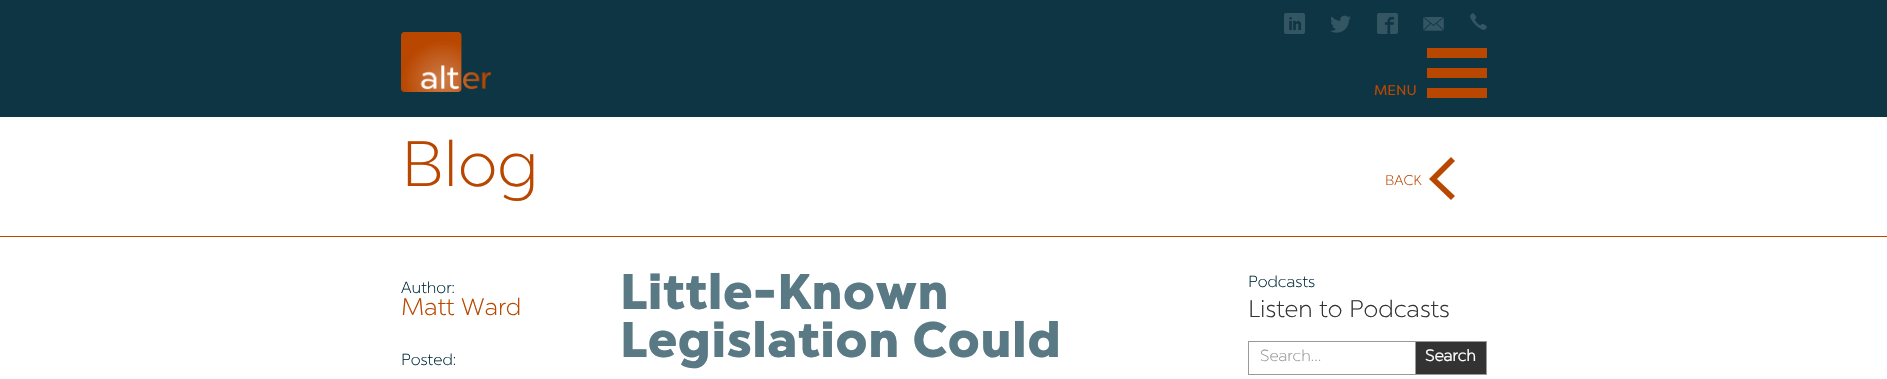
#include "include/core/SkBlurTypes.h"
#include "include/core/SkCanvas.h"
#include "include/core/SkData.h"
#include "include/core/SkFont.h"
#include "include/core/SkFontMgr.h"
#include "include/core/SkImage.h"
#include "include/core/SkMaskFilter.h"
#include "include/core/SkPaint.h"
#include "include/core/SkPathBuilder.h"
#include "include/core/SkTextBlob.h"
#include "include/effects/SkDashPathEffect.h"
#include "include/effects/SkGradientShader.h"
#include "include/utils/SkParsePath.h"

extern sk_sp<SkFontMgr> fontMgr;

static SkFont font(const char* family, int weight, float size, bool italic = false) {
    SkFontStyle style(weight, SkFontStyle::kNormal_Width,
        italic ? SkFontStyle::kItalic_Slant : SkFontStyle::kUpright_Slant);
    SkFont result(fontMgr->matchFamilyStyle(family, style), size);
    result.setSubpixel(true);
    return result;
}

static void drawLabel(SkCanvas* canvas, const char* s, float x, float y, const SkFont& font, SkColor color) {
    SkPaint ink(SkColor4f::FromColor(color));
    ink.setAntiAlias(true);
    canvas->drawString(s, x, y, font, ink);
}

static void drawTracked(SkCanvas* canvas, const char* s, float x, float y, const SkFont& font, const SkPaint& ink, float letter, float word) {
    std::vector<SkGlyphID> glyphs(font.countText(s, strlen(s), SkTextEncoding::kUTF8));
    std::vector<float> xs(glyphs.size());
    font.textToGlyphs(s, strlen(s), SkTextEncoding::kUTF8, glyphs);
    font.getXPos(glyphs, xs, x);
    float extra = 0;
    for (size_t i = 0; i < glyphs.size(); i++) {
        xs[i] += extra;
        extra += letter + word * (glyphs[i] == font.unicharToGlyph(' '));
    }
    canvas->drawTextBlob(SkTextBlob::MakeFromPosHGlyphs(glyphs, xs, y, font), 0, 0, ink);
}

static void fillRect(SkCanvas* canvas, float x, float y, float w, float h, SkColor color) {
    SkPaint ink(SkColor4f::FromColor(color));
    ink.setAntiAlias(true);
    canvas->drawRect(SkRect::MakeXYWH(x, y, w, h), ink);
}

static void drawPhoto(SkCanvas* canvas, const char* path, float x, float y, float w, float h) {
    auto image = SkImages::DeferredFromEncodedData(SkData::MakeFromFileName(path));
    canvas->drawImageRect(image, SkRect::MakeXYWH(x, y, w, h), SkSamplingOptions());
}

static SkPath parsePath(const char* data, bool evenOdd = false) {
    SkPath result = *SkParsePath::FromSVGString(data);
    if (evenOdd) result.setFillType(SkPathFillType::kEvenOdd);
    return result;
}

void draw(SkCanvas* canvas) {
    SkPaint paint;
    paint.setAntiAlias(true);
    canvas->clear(0xFFFFFFFF);
    fillRect(canvas, 0, 0, 1887, 117, 0xFF0D3544);
    drawPhoto(canvas, "assets/img1.png", 401, 32, 90, 60);
    drawPhoto(canvas, "assets/img2.png", 1284, 13, 21, 21);
    drawPhoto(canvas, "assets/img3.png", 1330, 15, 21, 18);
    drawPhoto(canvas, "assets/img4.png", 1377, 13, 21, 21);
    drawPhoto(canvas, "assets/img5.png", 1423, 17, 21, 14);
    drawPhoto(canvas, "assets/img6.png", 1470, 13, 17, 17);
    SkFont font1 = font("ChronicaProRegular", 400, 14);
    drawLabel(canvas, "MENU", 1374, 95, font1, 0xFFB94700);
    fillRect(canvas, 1427, 88, 60, 10, 0xFFB94700);
    fillRect(canvas, 1427, 48, 60, 10, 0xFFB94700);
    fillRect(canvas, 1427, 68, 60, 10, 0xFFB94700);
    fillRect(canvas, 0, 236, 1887, 1, 0xFFB94700);
    SkFont font2 = font("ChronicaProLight", 400, 64);
    drawLabel(canvas, "Blog", 401, 186, font2, 0xFFB94700);
    SkFont font3 = font("ChronicaProLight", 400, 14);
    drawLabel(canvas, "BACK", 1385, 185, font3, 0xFFB94700);
    paint.setColor(0xFFB94700);
    canvas->drawPath(parsePath("M1451 157L1429 179L1451 200L1455 196L1437 179L1455 161Z"), paint);
    SkFont font4 = font("ChronicaProLight", 400, 16);
    drawLabel(canvas, "Author:", 401, 293, font4, 0xFF002A3A);
    SkFont font5 = font("ChronicaProLight", 400, 24);
    drawLabel(canvas, "Matt Ward", 401, 315, font5, 0xFFB94700);
    drawLabel(canvas, "Posted:", 401, 365, font4, 0xFF002A3A);
    SkFont font6 = font("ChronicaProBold", 700, 48);
    paint.setColor(0xFF597985);
    drawTracked(canvas, "Little-Known", 620, 309, font6, paint, 2, 0);
    drawTracked(canvas, "Legislation Could", 620, 357, font6, paint, 2, 0);
    drawLabel(canvas, "Podcasts", 1248, 287, font4, 0xFF002A3A);
    drawLabel(canvas, "Listen to Podcasts", 1248, 317, font5, 0xFF333333);
    fillRect(canvas, 1248, 341, 167, 1, 0xFF999999);
    fillRect(canvas, 1248, 374, 167, 1, 0xFF999999);
    fillRect(canvas, 1248, 341, 1, 34, 0xFF999999);
    drawLabel(canvas, "Search…", 1260, 361, font4, 0xFF999999);
    paint.setColor(0xFF333333);
    canvas->drawRect(SkRect::MakeXYWH(1415.5f, 341.5f, 71, 33), paint);
    paint.setStroke(true);
    paint.setStrokeWidth(1);
    paint.setColor(0xFF999999);
    canvas->drawRect(SkRect::MakeXYWH(1415.5f, 341.5f, 71, 33), paint);
    SkFont font7 = font("ChronicaProLight", 700, 16);
    drawLabel(canvas, "Search", 1425, 361, font7, 0xFFFFFFFF);
}
